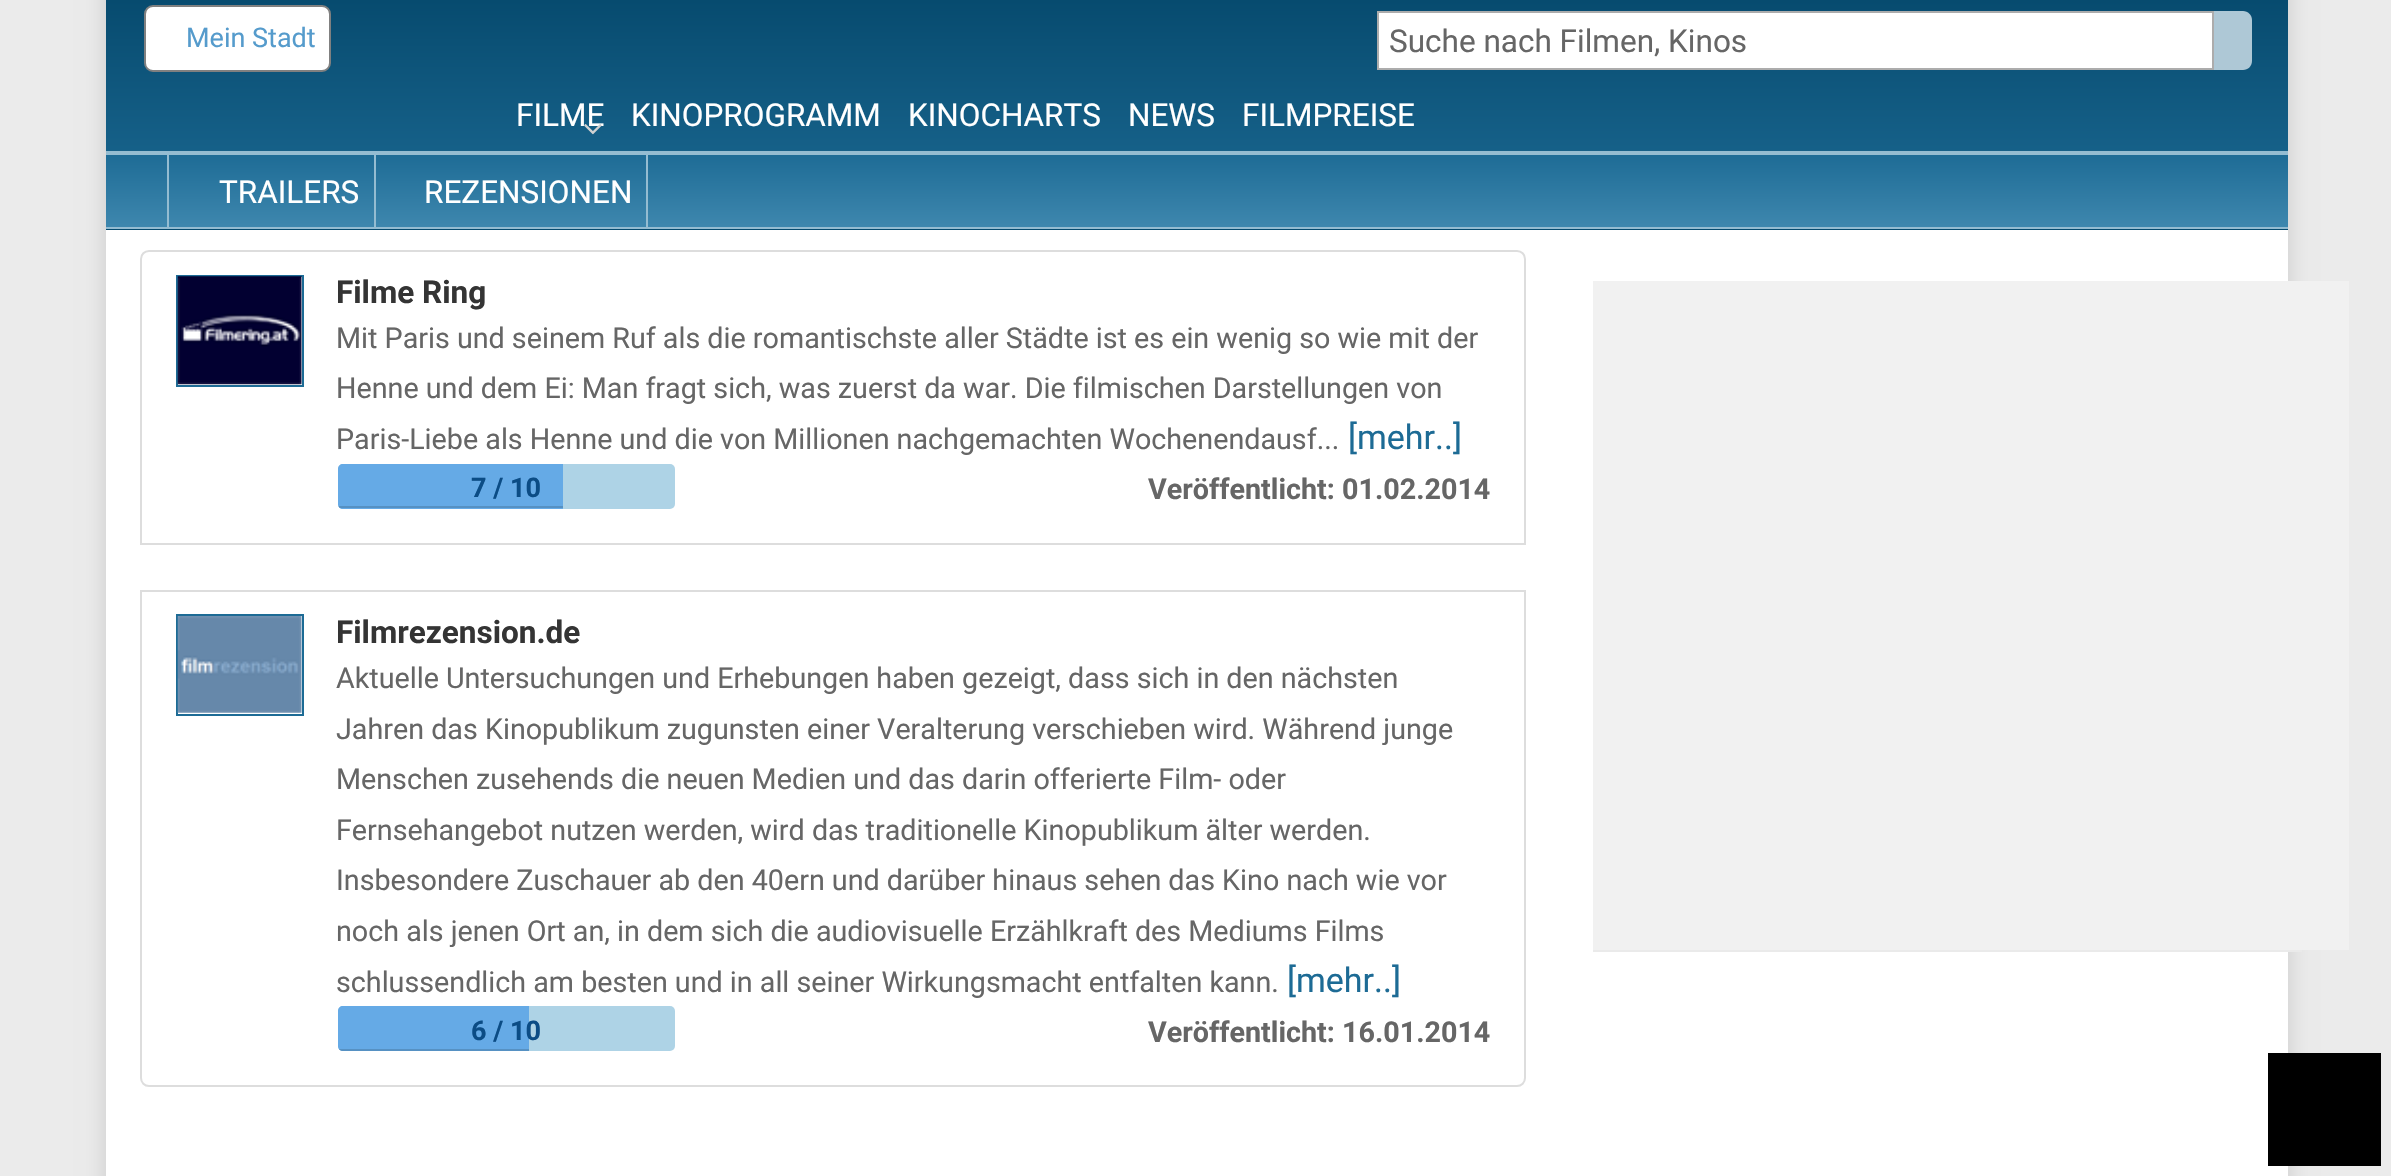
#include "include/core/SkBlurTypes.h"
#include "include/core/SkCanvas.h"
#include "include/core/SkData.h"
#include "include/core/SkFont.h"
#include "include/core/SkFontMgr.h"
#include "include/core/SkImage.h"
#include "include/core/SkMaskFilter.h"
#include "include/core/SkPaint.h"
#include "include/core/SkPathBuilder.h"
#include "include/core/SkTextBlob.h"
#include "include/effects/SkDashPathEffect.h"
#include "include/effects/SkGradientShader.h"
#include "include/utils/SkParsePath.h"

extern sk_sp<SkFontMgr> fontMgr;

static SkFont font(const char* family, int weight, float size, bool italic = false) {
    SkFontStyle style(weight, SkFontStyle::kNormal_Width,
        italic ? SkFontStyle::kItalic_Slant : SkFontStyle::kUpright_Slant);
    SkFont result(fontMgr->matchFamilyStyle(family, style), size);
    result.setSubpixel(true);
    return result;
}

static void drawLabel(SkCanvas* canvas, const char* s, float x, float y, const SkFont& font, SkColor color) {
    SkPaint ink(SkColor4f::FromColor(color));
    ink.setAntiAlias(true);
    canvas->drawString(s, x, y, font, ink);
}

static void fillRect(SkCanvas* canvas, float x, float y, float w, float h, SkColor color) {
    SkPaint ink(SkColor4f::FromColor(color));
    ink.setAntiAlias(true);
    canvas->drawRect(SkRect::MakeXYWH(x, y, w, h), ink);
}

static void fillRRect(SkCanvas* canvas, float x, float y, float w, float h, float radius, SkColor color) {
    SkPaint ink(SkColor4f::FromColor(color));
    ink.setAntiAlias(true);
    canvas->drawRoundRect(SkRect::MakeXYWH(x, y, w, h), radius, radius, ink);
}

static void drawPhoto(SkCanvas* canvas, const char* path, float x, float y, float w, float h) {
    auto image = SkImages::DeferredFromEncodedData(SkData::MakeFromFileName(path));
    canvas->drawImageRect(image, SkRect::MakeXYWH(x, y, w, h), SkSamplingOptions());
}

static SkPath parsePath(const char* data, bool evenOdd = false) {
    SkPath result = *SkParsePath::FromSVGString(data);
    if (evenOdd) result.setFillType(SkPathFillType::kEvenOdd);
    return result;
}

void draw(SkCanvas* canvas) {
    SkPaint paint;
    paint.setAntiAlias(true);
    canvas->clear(0xFFEBEBEB);
    paint.setColor(0xFFCACACA);
    paint.setMaskFilter(SkMaskFilter::MakeBlur(kNormal_SkBlurStyle, 11));
    canvas->drawRect(SkRect::MakeXYWH(106, -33, 2182, 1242), paint);
    paint.setMaskFilter(nullptr);
    fillRect(canvas, 106, 230, 2182, 946, 0xFFFFFFFF);
    {
        const SkColor colors[] = {0xFF074B6F, 0xFF1D6B95};
        const float stops[] = {0, 1};
        const SkPoint ends[] = {{1197, 0}, {1197, 227}};
        paint.setShader(SkGradientShader::MakeLinear(ends, colors, stops, 2, SkTileMode::kClamp));
        paint.setAlpha(255);
    }
    canvas->drawRect(SkRect::MakeXYWH(106, 0, 2182, 151), paint);
    {
        const SkColor colors[] = {0xFF074B6F, 0xFF1D6B95};
        const float stops[] = {0, 1};
        const SkPoint ends[] = {{1197, 227}, {1197, 455}};
        paint.setShader(SkGradientShader::MakeLinear(ends, colors, stops, 2, SkTileMode::kClamp));
        paint.setAlpha(255);
    }
    canvas->drawRect(SkRect::MakeXYWH(106, 229, 2182, 1), paint);
    fillRect(canvas, 106, 227, 2182, 2, 0xFF94BCD1);
    paint.setShader(nullptr);
    paint.setColor(0xFFFFFFFF);
    canvas->drawRoundRect(SkRect::MakeXYWH(145, 6, 185, 65), 8, 8, paint);
    paint.setStroke(true);
    paint.setStrokeWidth(2);
    paint.setColor(0xFF808080);
    canvas->drawRoundRect(SkRect::MakeXYWH(145, 6, 185, 65), 8, 8, paint);
    SkFont font1 = font("Roboto", 400, 27);
    drawLabel(canvas, "Mein Stadt", 186, 47, font1, 0xFF559BCC);
    paint.setStroke(false);
    paint.setColor(0xFFFFFFFF);
    canvas->drawRect(SkRect::MakeXYWH(1378, 12, 835, 57), paint);
    paint.setStroke(true);
    paint.setColor(0xFFACACAC);
    canvas->drawRect(SkRect::MakeXYWH(1378, 12, 835, 57), paint);
    SkFont font2 = font("Roboto", 400, 31.5f);
    drawLabel(canvas, "Suche nach Filmen, Kinos", 1389, 52, font2, 0xFF666666);
    paint.setStroke(false);
    paint.setColor(0xFFAEC8D6);
    canvas->drawPath(parsePath("M2214 11H2243C2248 11 2252 15 2252 20V61C2252 66 2248 70 2243 70H2214Z"), paint);
    drawLabel(canvas, "FILME", 516, 126, font2, 0xFFFFFFFF);
    drawPhoto(canvas, "assets/img1.png", 584, 124, 18, 11);
    drawLabel(canvas, "KINOPROGRAMM", 631, 126, font2, 0xFFFFFFFF);
    drawLabel(canvas, "KINOCHARTS", 908, 126, font2, 0xFFFFFFFF);
    drawLabel(canvas, "NEWS", 1128, 126, font2, 0xFFFFFFFF);
    drawLabel(canvas, "FILMPREISE", 1242, 126, font2, 0xFFFFFFFF);
    fillRect(canvas, 106, 151, 2182, 4, 0xFF94BCD1);
    {
        const SkColor colors[] = {0xFF1D6B95, 0xFF3E87AE};
        const float stops[] = {0, 1};
        const SkPoint ends[] = {{1197, 153}, {1197, 227}};
        paint.setShader(SkGradientShader::MakeLinear(ends, colors, stops, 2, SkTileMode::kClamp));
        paint.setAlpha(255);
    }
    canvas->drawRect(SkRect::MakeXYWH(106, 155, 2182, 72), paint);
    fillRect(canvas, 167, 155, 2, 72, 0xFF94BCD1);
    fillRect(canvas, 374, 155, 2, 72, 0xFF94BCD1);
    drawLabel(canvas, "TRAILERS", 219, 203, font2, 0xFFFFFFFF);
    fillRect(canvas, 646, 155, 2, 72, 0xFF94BCD1);
    drawLabel(canvas, "REZENSIONEN", 424, 203, font2, 0xFFFFFFFF);
    paint.setStroke(true);
    paint.setShader(nullptr);
    paint.setColor(0xFFDDDDDD);
    canvas->drawPath(parsePath("M149 251H1517C1521.5 251 1525 254.5 1525 259V544H141V259C141 254.5 144.5 251 149 251Z"), paint);
    paint.setColor(0xFF1D6B95);
    canvas->drawRect(SkRect::MakeXYWH(177, 276, 126, 110), paint);
    drawPhoto(canvas, "assets/img2.png", 177, 276, 125, 109);
    SkFont font3 = font("Roboto", 700, 31.5f);
    drawLabel(canvas, "Filme Ring", 336, 303, font3, 0xFF343434);
    SkFont font4 = font("Roboto", 400, 28.7f);
    drawLabel(canvas, "Mit Paris und seinem Ruf als die romantischste aller Städte ist es ein wenig so wie mit der", 336, 348, font4, 0xFF666666);
    drawLabel(canvas, "Henne und dem Ei: Man fragt sich, was zuerst da war. Die filmischen Darstellungen von", 336, 398, font4, 0xFF666666);
    drawLabel(canvas, "Paris-Liebe als Henne und die von Millionen nachgemachten Wochenendausf...", 336, 449, font4, 0xFF666666);
    SkFont font5 = font("Roboto", 400, 34);
    drawLabel(canvas, "[mehr..]", 1348, 449, font5, 0xFF1D6B95);
    fillRRect(canvas, 338, 464, 337, 45, 5, 0xFFAED3E6);
    paint.setStroke(false);
    paint.setColor(0xFF65AAE6);
    canvas->drawPath(parsePath("M343 464H563V509H343C340 509 338 507 338 504V469C338 466 340 464 343 464Z"), paint);
    canvas->save();
    canvas->clipPath(parsePath("M343 464H670C673 464 675 466 675 469V504C675 507 673 509 670 509H343C340 509 338 507 338 504V469C338 466 340 464 343 464Z"), true);
    fillRect(canvas, 338, 506, 225, 2, 0x26000000);
    canvas->restore();
    SkFont font6 = font("Roboto", 700, 27);
    drawLabel(canvas, "7 / 10", 471, 497, font6, 0xFF0B4C85);
    SkFont font7 = font("Roboto", 700, 28.7f);
    drawLabel(canvas, "Veröffentlicht: 01.02.2014", 1148, 499, font7, 0xFF666666);
    paint.setStroke(true);
    paint.setColor(0xFFDDDDDD);
    canvas->drawPath(parsePath("M141 591H1525V1078C1525 1082.5 1521.5 1086 1517 1086H149C144.5 1086 141 1082.5 141 1078Z"), paint);
    paint.setColor(0xFF1D6B95);
    canvas->drawRect(SkRect::MakeXYWH(177, 615, 126, 100), paint);
    drawPhoto(canvas, "assets/img3.png", 177, 616, 125, 97);
    drawLabel(canvas, "Filmrezension.de", 336, 643, font3, 0xFF343434);
    drawLabel(canvas, "Aktuelle Untersuchungen und Erhebungen haben gezeigt, dass sich in den nächsten", 336, 688, font4, 0xFF666666);
    drawLabel(canvas, "Jahren das Kinopublikum zugunsten einer Veralterung verschieben wird. Während junge", 336, 739, font4, 0xFF666666);
    drawLabel(canvas, "Menschen zusehends die neuen Medien und das darin offerierte Film- oder", 336, 789, font4, 0xFF666666);
    drawLabel(canvas, "Fernsehangebot nutzen werden, wird das traditionelle Kinopublikum älter werden.", 336, 840, font4, 0xFF666666);
    drawLabel(canvas, "Insbesondere Zuschauer ab den 40ern und darüber hinaus sehen das Kino nach wie vor", 336, 890, font4, 0xFF666666);
    drawLabel(canvas, "noch als jenen Ort an, in dem sich die audiovisuelle Erzählkraft des Mediums Films", 336, 941, font4, 0xFF666666);
    drawLabel(canvas, "schlussendlich am besten und in all seiner Wirkungsmacht entfalten kann.", 336, 992, font4, 0xFF666666);
    drawLabel(canvas, "[mehr..]", 1287, 992, font5, 0xFF1D6B95);
    fillRRect(canvas, 338, 1006, 337, 45, 5, 0xFFAED3E6);
    paint.setStroke(false);
    paint.setColor(0xFF65AAE6);
    canvas->drawPath(parsePath("M343 1006H529V1051H343C340 1051 338 1049 338 1046V1011C338 1008 340 1006 343 1006Z"), paint);
    canvas->save();
    canvas->clipPath(parsePath("M343 1006H670C673 1006 675 1008 675 1011V1046C675 1049 673 1051 670 1051H343C340 1051 338 1049 338 1046V1011C338 1008 340 1006 343 1006Z"), true);
    fillRect(canvas, 338, 1049, 191, 2, 0x26000000);
    canvas->restore();
    drawLabel(canvas, "6 / 10", 471, 1040, font6, 0xFF0B4C85);
    drawLabel(canvas, "Veröffentlicht: 16.01.2014", 1148, 1042, font7, 0xFF666666);
    fillRect(canvas, 1593, 281, 756, 669, 0xFFF1F1F1);
    fillRect(canvas, 1593, 950, 709, 2, 0xFFEAEAEA);
    fillRect(canvas, 2268, 1053, 113, 113, 0xFF000000);
}
